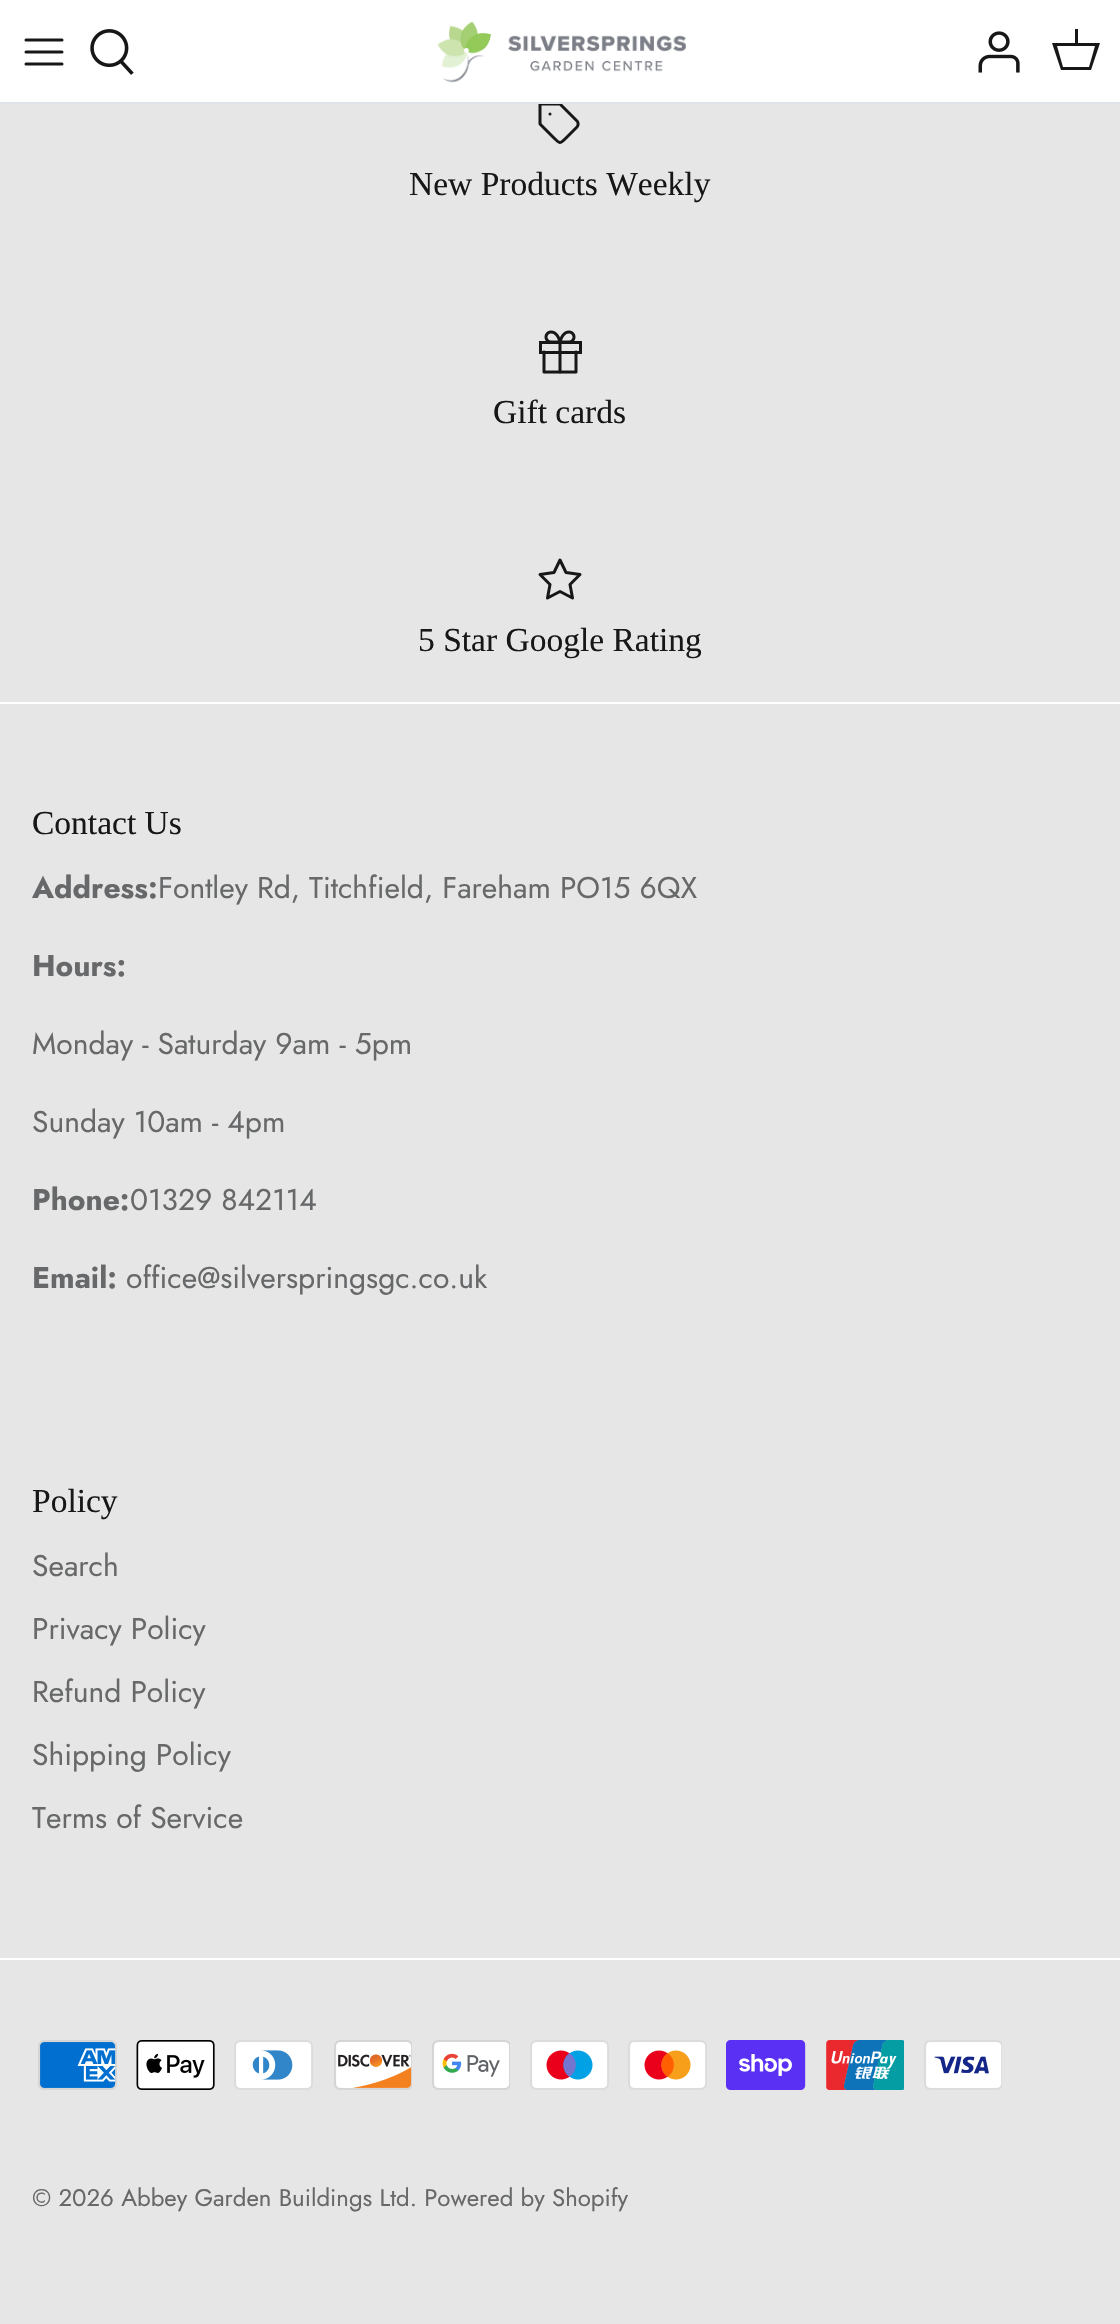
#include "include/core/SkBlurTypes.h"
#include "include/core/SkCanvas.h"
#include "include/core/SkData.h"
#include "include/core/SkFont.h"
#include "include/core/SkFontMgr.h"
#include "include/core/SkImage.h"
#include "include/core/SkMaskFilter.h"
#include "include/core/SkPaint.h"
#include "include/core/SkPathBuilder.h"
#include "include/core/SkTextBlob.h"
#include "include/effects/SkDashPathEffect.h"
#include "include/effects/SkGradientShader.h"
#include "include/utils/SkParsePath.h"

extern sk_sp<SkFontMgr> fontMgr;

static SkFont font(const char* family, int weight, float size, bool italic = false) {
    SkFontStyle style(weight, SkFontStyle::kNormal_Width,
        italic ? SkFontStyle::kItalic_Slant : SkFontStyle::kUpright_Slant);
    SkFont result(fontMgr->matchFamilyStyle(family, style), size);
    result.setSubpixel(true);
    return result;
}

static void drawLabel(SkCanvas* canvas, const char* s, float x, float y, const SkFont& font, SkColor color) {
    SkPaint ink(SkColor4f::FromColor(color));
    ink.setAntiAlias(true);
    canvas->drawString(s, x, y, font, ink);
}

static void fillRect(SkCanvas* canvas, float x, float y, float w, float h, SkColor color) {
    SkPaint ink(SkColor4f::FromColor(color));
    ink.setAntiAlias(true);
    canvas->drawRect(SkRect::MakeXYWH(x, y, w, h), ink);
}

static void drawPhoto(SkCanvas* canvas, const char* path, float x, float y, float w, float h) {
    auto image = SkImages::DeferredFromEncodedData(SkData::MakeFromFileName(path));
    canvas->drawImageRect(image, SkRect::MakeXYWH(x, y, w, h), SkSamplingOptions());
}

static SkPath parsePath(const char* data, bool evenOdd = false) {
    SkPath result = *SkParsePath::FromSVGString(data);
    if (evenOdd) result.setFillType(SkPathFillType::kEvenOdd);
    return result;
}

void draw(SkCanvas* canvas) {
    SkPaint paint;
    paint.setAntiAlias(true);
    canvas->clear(0xFFE6E6E6);
    fillRect(canvas, 0, 0, 1120, 102, 0xFFFFFFFF);
    paint.setStroke(true);
    paint.setStrokeWidth(3);
    paint.setStrokeCap(SkPaint::kRound_Cap);
    paint.setStrokeJoin(SkPaint::kRound_Join);
    paint.setColor(0xFF171717);
    canvas->drawPath(parsePath("M577 127L565 139C560 144 559.5 143.5 554.5 138.5L540 124V104H560L577 121C578.5 122.5 578.5 125.5 577 127ZM550 114H550"), paint);
    fillRect(canvas, 0, 102, 1120, 2, 0xFFDFE3E8);
    canvas->drawPath(parsePath("M26 52H62M26 40H62M26 64H62"), paint);
    drawPhoto(canvas, "assets/img1.png", 90, 29, 44, 46);
    drawPhoto(canvas, "assets/img2.png", 437, 21, 249, 62);
    drawPhoto(canvas, "assets/img3.png", 978, 31, 42, 42);
    paint.setStroke(false);
    canvas->drawPath(parsePath("M1075 43V29H1078V43H1100L1091 70H1061L1052 43ZM1057 46L1063 67H1089L1095 46Z"), paint);
    SkFont font1 = font("Liberation Serif", 400, 33.5f);
    drawLabel(canvas, "New Products Weekly", 409, 195, font1, 0xFF171717);
    drawPhoto(canvas, "assets/img4.png", 539, 330, 43, 44);
    drawLabel(canvas, "Gift cards", 493, 423, font1, 0xFF171717);
    paint.setStroke(true);
    canvas->drawPath(parsePath("M560 560L566 572.5L580 574.5L570 584.5L572.5 598L560 591.5L547.5 598L550 584.5L540 574.5L554 572.5Z"), paint);
    drawLabel(canvas, "5 Star Google Rating", 418, 651, font1, 0xFF171717);
    fillRect(canvas, 0, 702, 1120, 2, 0xFFFFFFFF);
    drawLabel(canvas, "Contact Us", 32, 834, font1, 0xFF171717);
    SkFont font2 = font("Jost", 700, 30);
    drawLabel(canvas, "Address:", 32, 898, font2, 0xFF676869);
    SkFont font3 = font("Jost", 400, 30);
    drawLabel(canvas, "Fontley Rd, Titchfield, Fareham PO15 6QX", 158, 898, font3, 0xFF676869);
    drawLabel(canvas, "Hours:", 32, 976, font2, 0xFF676869);
    drawLabel(canvas, "Monday - Saturday 9am - 5pm", 32, 1054, font3, 0xFF676869);
    drawLabel(canvas, "Sunday 10am - 4pm", 32, 1132, font3, 0xFF676869);
    drawLabel(canvas, "Phone:", 32, 1210, font2, 0xFF676869);
    drawLabel(canvas, "01329 842114", 130, 1210, font3, 0xFF676869);
    drawLabel(canvas, "Email:", 32, 1288, font2, 0xFF676869);
    drawLabel(canvas, "office@silverspringsgc.co.uk", 126, 1288, font3, 0xFF676869);
    drawLabel(canvas, "Policy", 32, 1512, font1, 0xFF171717);
    drawLabel(canvas, "Search", 32, 1576, font3, 0xFF676869);
    drawLabel(canvas, "Privacy Policy", 32, 1639, font3, 0xFF676869);
    drawLabel(canvas, "Refund Policy", 32, 1702, font3, 0xFF676869);
    drawLabel(canvas, "Shipping Policy", 32, 1765, font3, 0xFF676869);
    drawLabel(canvas, "Terms of Service", 32, 1828, font3, 0xFF676869);
    fillRect(canvas, 0, 1958, 1120, 2, 0xFFFFFFFF);
    drawPhoto(canvas, "assets/img5.png", 38, 2040, 79, 50);
    drawPhoto(canvas, "assets/img6.png", 136, 2040, 79, 50);
    drawPhoto(canvas, "assets/img7.png", 234, 2040, 79, 50);
    drawPhoto(canvas, "assets/img8.png", 334, 2040, 78, 50);
    drawPhoto(canvas, "assets/img9.png", 432, 2040, 78, 50);
    drawPhoto(canvas, "assets/img10.png", 530, 2040, 79, 50);
    drawPhoto(canvas, "assets/img11.png", 628, 2040, 79, 50);
    drawPhoto(canvas, "assets/img12.png", 726, 2040, 80, 50);
    drawPhoto(canvas, "assets/img13.png", 826, 2040, 78, 50);
    drawPhoto(canvas, "assets/img14.png", 924, 2040, 78, 50);
    SkFont font4 = font("Jost", 400, 24);
    drawLabel(canvas, "© 2026 Abbey Garden Buildings Ltd. Powered by Shopify", 32, 2206, font4, 0xFF676869);
}
